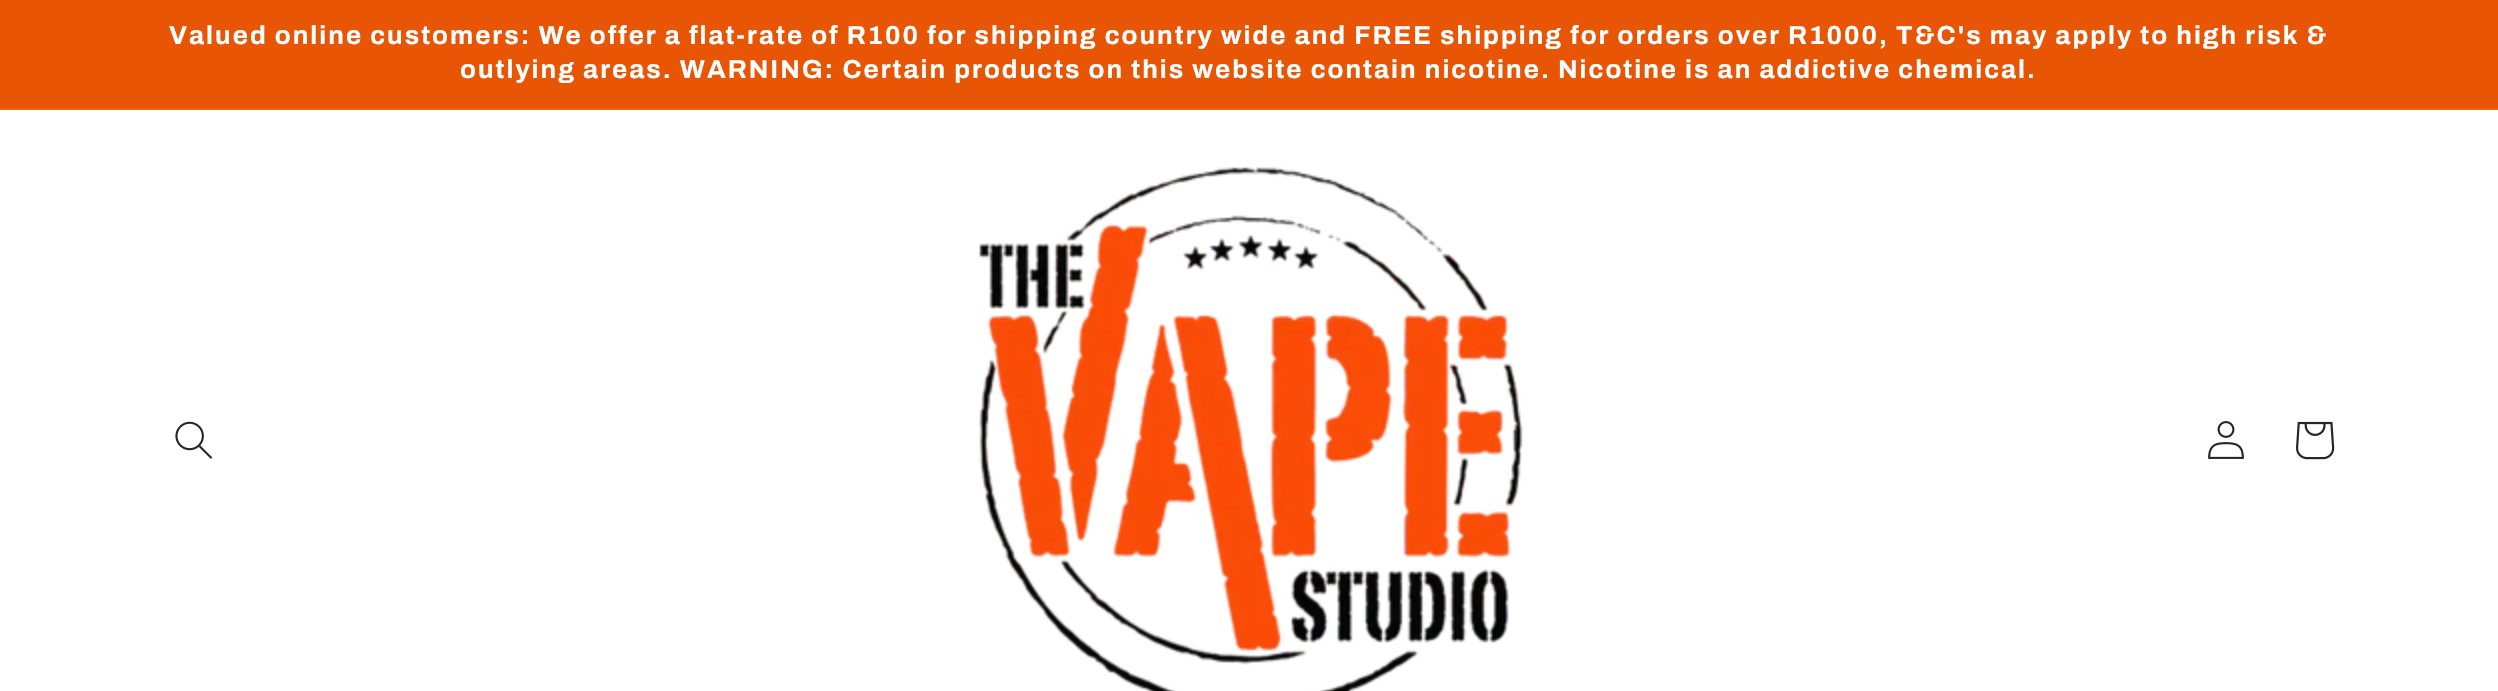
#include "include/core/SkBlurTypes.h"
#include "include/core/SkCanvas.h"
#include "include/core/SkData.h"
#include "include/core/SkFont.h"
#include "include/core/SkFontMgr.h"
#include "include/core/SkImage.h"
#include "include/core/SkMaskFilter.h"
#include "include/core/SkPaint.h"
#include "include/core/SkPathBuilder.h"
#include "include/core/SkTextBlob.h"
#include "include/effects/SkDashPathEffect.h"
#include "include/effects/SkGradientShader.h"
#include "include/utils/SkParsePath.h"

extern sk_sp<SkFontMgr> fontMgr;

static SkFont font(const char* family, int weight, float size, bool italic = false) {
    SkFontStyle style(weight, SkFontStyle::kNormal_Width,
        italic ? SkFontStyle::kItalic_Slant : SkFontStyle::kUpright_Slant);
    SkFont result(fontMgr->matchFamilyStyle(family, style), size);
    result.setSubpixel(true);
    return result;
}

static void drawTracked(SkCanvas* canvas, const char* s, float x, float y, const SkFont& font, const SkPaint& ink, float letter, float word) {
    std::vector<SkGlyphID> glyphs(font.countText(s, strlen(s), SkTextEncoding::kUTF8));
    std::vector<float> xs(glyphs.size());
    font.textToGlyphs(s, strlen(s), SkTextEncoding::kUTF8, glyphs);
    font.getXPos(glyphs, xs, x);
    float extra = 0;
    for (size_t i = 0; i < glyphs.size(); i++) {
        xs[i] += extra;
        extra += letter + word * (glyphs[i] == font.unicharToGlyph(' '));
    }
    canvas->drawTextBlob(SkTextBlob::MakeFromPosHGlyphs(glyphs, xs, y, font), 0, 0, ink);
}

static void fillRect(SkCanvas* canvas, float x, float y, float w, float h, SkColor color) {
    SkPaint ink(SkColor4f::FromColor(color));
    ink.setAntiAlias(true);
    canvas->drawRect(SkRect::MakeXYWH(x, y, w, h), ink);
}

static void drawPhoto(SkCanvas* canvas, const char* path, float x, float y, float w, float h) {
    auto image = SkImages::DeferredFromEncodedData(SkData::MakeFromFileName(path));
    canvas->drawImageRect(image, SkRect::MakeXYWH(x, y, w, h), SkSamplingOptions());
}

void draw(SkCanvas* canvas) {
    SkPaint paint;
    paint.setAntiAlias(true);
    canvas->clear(0xFFFFFFFF);
    fillRect(canvas, 0, 0, 2498, 108, 0xFFE75505);
    fillRect(canvas, 0, 108, 2498, 2, 0xFFE96319);
    SkFont font1 = font("Archivo", 700, 26);
    paint.setColor(0xFFFFFFFF);
    drawTracked(canvas, "Valued online customers: We offer a flat-rate of R100 for shipping country wide and FREE shipping for orders over R1000, T&C's may apply to high risk &", 169, 44, font1, paint, 2, 0);
    drawTracked(canvas, "outlying areas. WARNING: Certain products on this website contain nicotine. Nicotine is an addictive chemical.", 460, 78, font1, paint, 2, 0);
    drawPhoto(canvas, "assets/img1.png", 175, 421, 37, 38);
    drawPhoto(canvas, "assets/img2.png", 978, 167, 545, 524);
    drawPhoto(canvas, "assets/img3.png", 2208, 421, 36, 38);
    drawPhoto(canvas, "assets/img4.png", 2296, 421, 39, 39);
}
